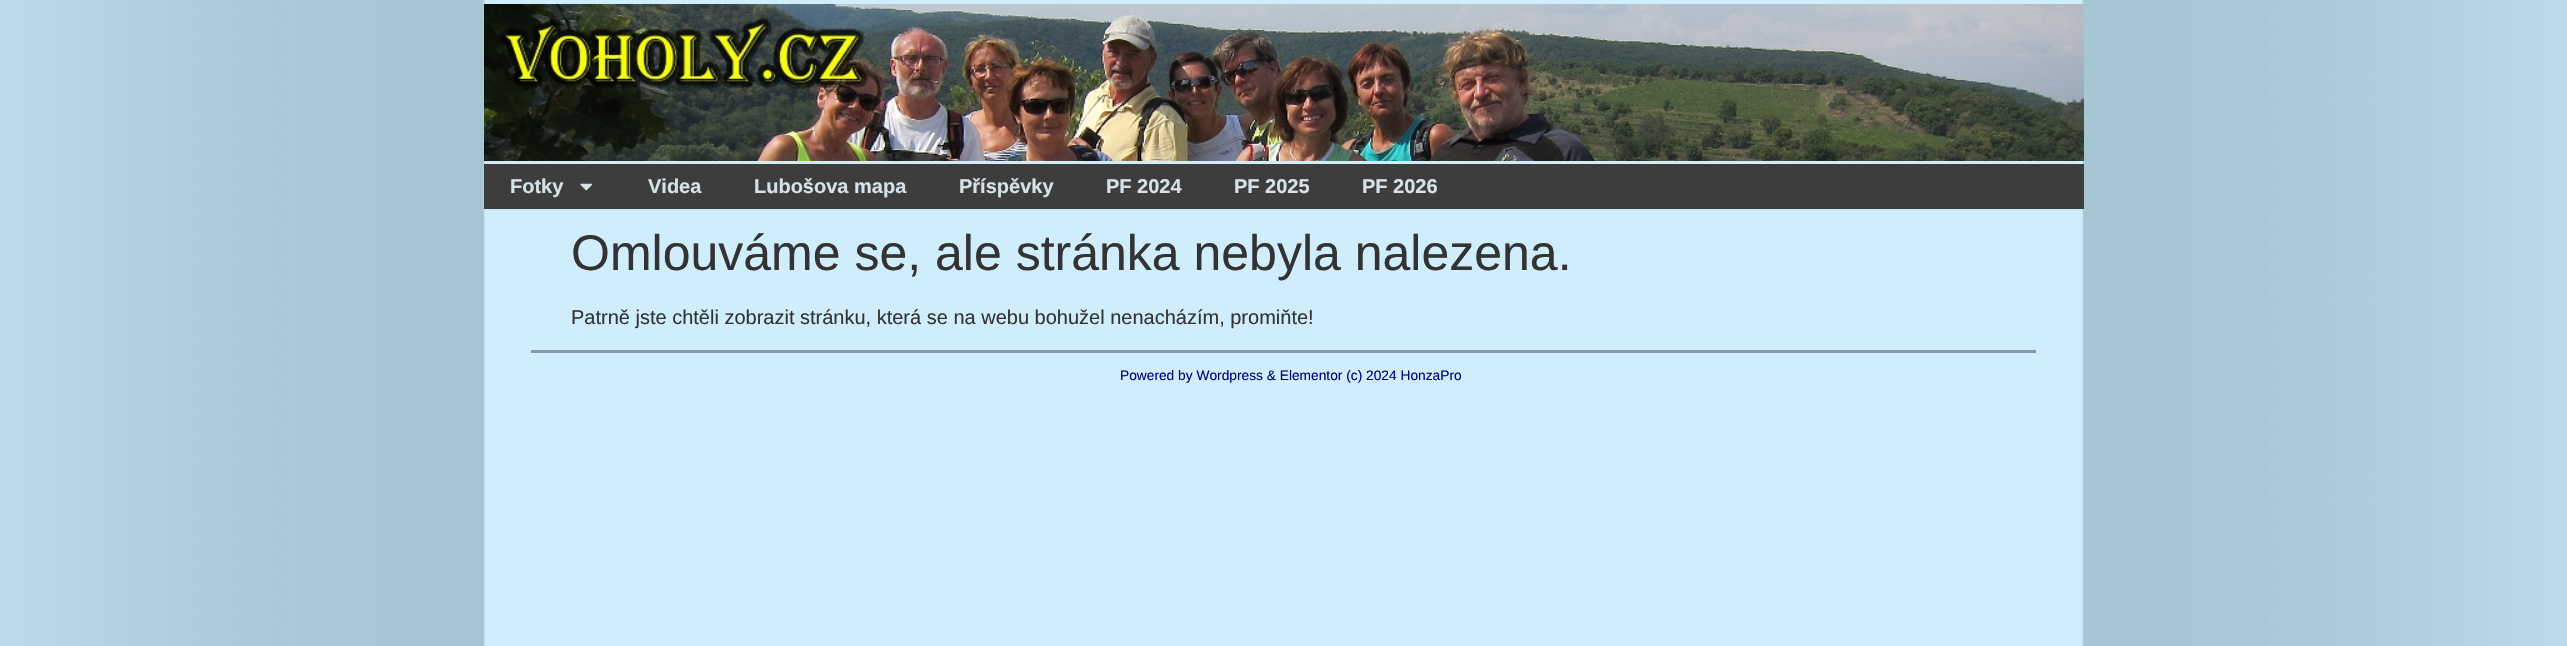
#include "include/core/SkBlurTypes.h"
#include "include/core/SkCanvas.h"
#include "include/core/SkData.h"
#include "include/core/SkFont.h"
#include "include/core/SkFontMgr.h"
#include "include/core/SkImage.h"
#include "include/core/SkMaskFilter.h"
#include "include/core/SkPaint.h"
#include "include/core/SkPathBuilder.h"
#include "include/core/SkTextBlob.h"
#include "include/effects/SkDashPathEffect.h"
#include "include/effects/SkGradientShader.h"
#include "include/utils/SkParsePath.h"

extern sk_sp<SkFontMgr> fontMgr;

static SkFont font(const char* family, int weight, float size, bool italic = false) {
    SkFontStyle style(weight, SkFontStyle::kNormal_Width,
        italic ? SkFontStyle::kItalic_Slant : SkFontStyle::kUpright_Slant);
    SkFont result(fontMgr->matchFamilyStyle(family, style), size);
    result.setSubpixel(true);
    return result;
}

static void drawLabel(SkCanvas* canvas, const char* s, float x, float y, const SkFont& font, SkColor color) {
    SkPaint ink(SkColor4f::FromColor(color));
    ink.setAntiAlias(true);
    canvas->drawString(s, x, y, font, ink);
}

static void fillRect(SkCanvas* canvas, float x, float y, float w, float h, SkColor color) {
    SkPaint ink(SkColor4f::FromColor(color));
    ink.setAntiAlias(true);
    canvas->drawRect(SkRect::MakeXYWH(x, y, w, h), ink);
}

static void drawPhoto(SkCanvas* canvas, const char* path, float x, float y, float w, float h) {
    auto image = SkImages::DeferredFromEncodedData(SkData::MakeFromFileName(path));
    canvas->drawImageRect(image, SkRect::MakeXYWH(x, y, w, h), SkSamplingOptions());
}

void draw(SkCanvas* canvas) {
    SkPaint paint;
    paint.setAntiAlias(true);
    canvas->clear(0xFFFFFFFF);
    drawPhoto(canvas, "assets/img1.png", 0, 0, 2567, 646);
    drawPhoto(canvas, "assets/img2.png", 484, 4, 1600, 157);
    fillRect(canvas, 484, 164, 1600, 45, 0xFF3D3D3D);
    SkFont font1 = font("Liberation Sans", 700, 20);
    drawLabel(canvas, "Fotky", 510, 193, font1, 0xFFD5E2E7);
    drawPhoto(canvas, "assets/img3.png", 580, 183, 12, 8);
    drawLabel(canvas, "Videa", 648, 193, font1, 0xFFD5E2E7);
    drawLabel(canvas, "Lubošova mapa", 754, 193, font1, 0xFFD5E2E7);
    drawLabel(canvas, "Příspěvky", 959, 193, font1, 0xFFD5E2E7);
    drawLabel(canvas, "PF 2024", 1106, 193, font1, 0xFFD5E2E7);
    drawLabel(canvas, "PF 2025", 1234, 193, font1, 0xFFD5E2E7);
    drawLabel(canvas, "PF 2026", 1362, 193, font1, 0xFFD5E2E7);
    SkFont font2 = font("Liberation Sans", 400, 50);
    drawLabel(canvas, "Omlouváme se, ale stránka nebyla nalezena.", 571, 270, font2, 0xFF333333);
    SkFont font3 = font("Liberation Sans", 400, 20);
    drawLabel(canvas, "Patrně jste chtěli zobrazit stránku, která se na webu bohužel nenacházím, promiňte!", 571, 324, font3, 0xFF333333);
    fillRect(canvas, 531, 350, 1505, 3, 0xFF8399B4);
    SkFont font4 = font("Liberation Sans", 400, 13.75f);
    drawLabel(canvas, "Powered by Wordpress & Elementor (c) 2024 HonzaPro", 1120, 380, font4, 0xFF000080);
}
